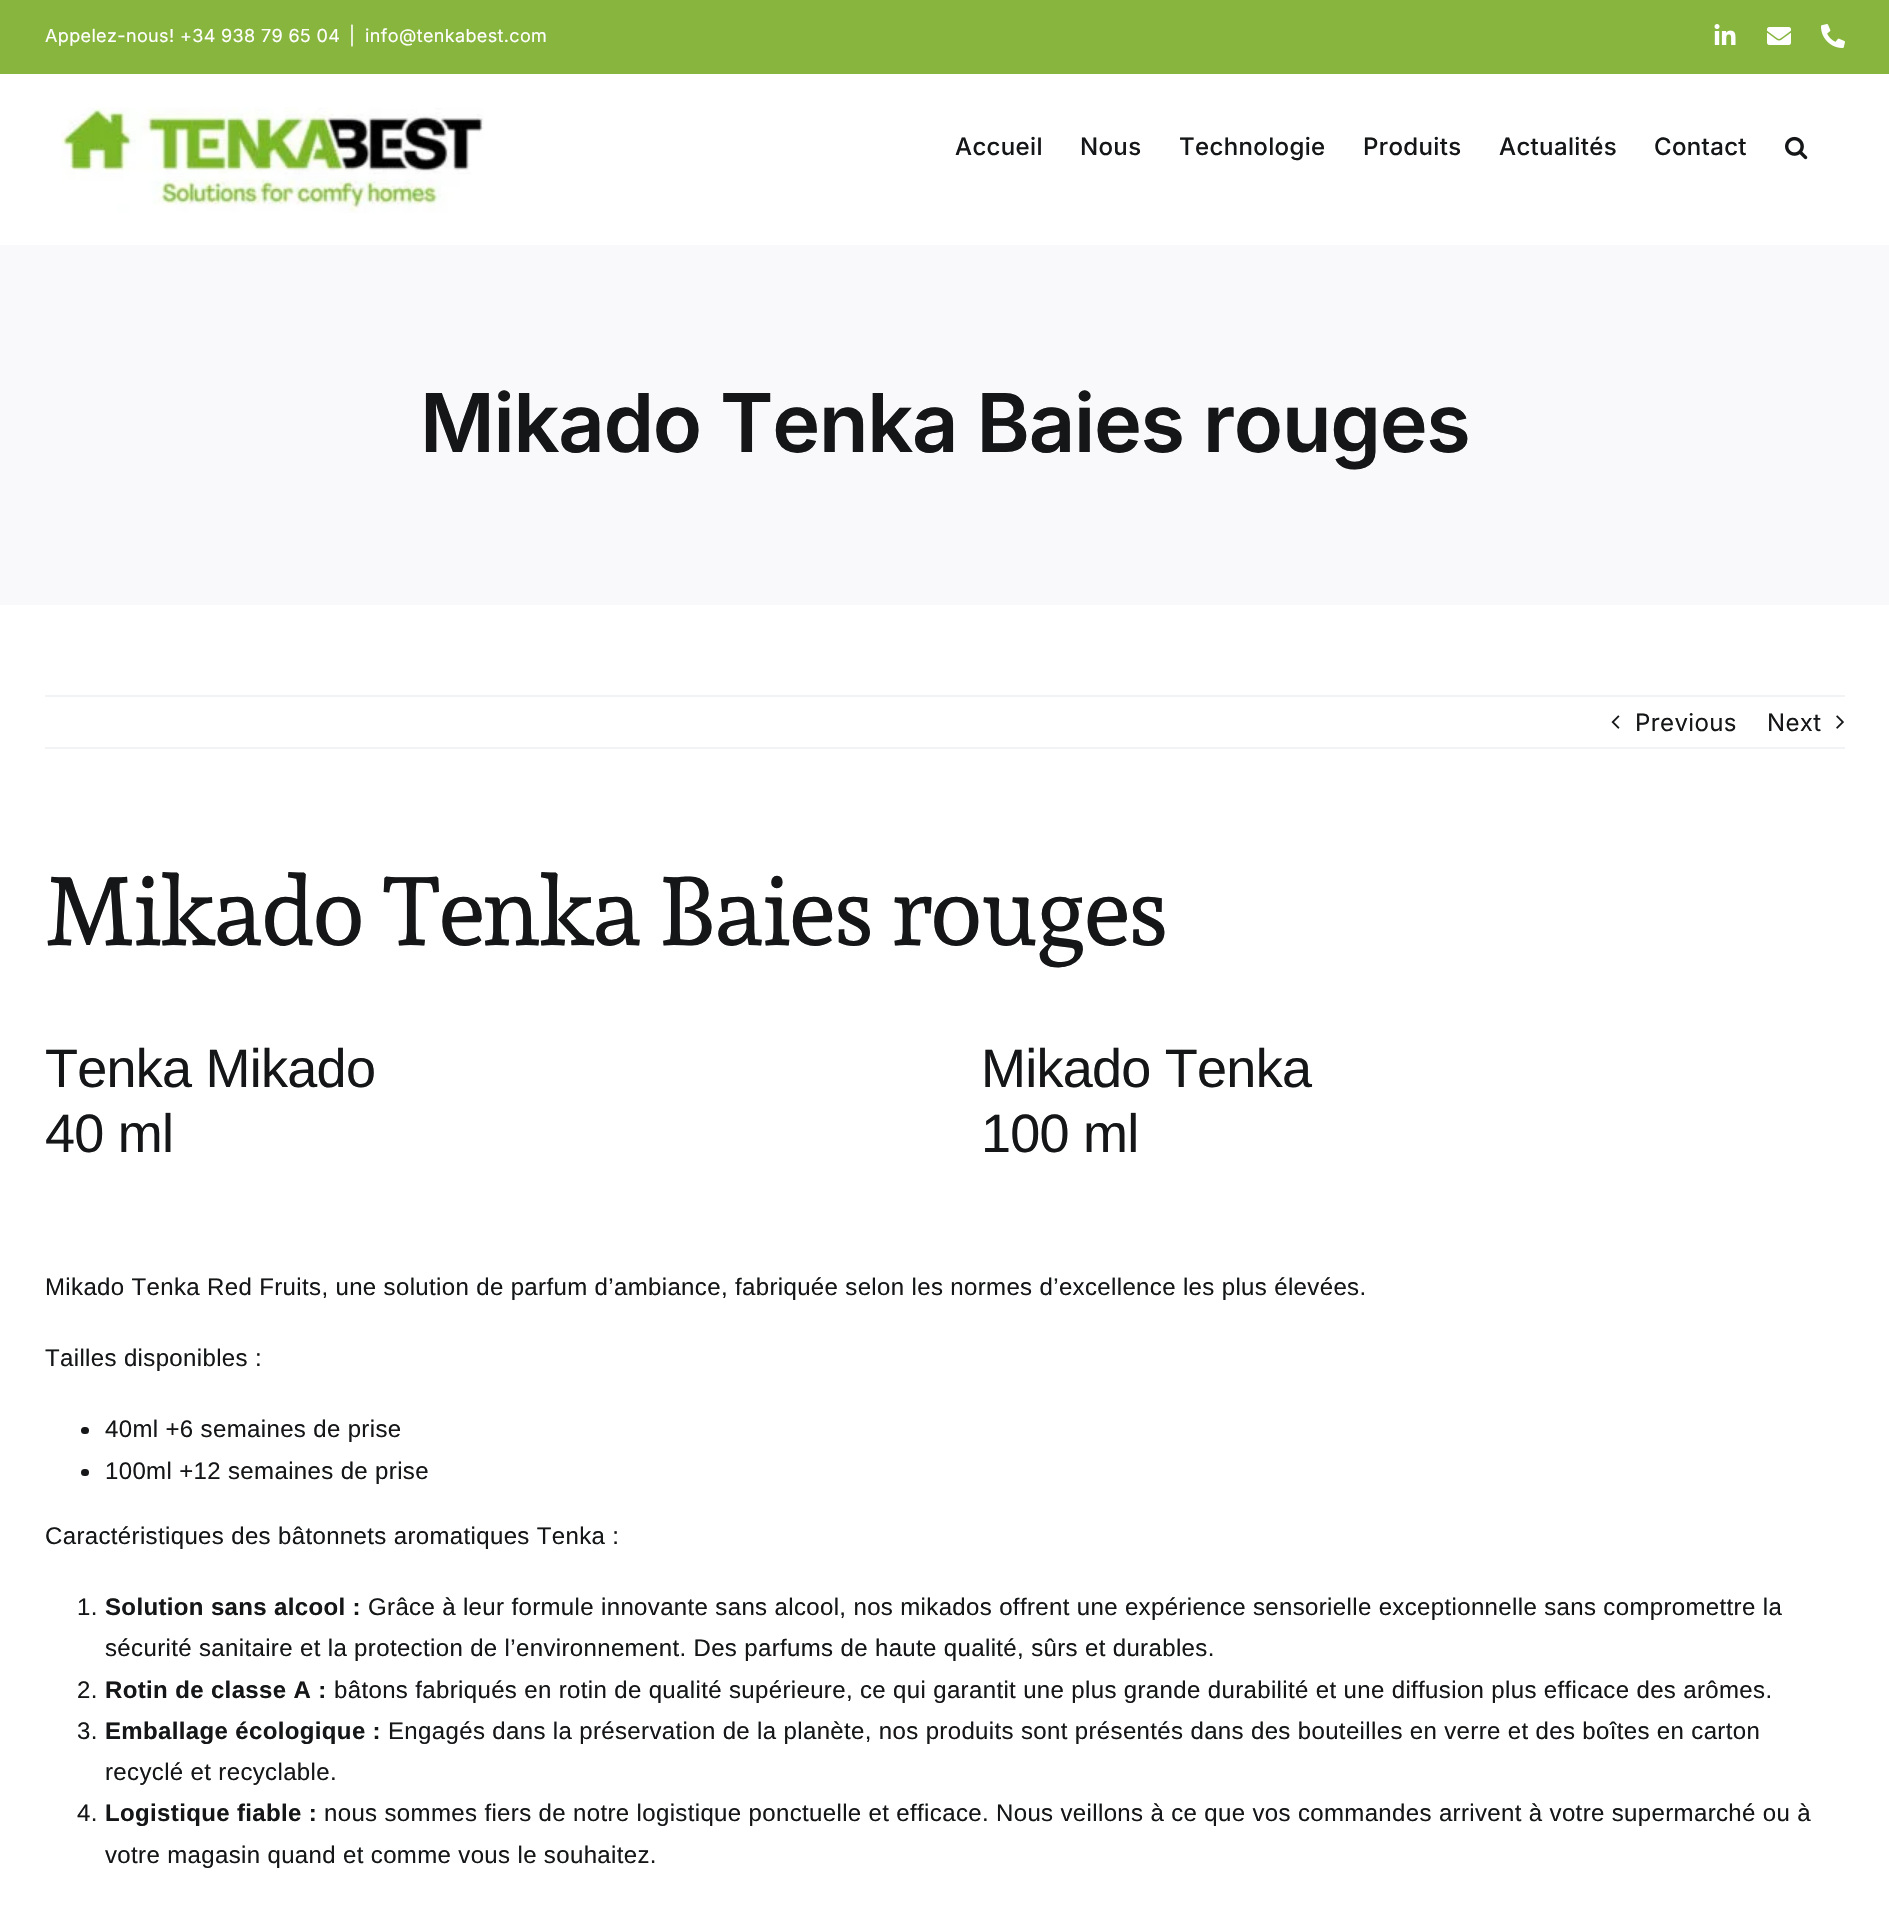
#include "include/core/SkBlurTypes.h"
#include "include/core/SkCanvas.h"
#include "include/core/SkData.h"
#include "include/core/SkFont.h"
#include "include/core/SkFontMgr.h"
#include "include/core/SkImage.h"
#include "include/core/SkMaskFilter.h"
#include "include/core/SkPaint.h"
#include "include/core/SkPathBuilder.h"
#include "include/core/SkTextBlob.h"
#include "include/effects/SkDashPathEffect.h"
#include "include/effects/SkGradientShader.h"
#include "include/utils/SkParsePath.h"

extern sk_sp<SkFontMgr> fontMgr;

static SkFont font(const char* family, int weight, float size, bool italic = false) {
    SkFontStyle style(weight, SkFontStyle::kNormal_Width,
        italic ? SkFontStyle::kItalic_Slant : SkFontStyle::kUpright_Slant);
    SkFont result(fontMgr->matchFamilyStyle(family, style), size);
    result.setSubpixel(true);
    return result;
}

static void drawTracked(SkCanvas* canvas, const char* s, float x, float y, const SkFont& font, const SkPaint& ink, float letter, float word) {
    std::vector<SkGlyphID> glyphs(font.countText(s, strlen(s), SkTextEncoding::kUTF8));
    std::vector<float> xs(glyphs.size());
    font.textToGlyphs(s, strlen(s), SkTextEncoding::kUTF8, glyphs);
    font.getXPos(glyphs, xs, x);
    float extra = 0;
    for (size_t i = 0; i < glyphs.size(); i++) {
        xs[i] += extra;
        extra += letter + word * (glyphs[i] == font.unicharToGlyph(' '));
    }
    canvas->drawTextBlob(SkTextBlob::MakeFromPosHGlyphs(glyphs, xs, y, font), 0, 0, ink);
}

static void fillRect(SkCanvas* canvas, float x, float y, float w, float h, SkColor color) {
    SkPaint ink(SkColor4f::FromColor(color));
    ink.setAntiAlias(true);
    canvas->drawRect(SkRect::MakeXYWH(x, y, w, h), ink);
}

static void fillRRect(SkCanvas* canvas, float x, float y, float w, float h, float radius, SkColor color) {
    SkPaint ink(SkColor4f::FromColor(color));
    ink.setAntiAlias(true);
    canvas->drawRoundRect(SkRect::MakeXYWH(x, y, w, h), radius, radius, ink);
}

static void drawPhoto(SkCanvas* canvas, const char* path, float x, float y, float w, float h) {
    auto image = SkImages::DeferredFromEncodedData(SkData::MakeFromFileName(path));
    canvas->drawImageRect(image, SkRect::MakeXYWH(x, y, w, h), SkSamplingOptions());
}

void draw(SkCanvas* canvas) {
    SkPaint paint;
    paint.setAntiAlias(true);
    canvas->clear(0xFFFFFFFF);
    fillRect(canvas, 0, 0, 1889, 74, 0xFF87B53D);
    SkFont font1 = font("Inter", 400, 18);
    paint.setColor(0xFFFFFFFF);
    drawTracked(canvas, "Appelez-nous! +34 938 79 65 04", 45, 42, font1, paint, 0.36f, 0);
    drawTracked(canvas, "|", 349, 42, font1, paint, 0.36f, 0);
    drawTracked(canvas, "info@tenkabest.com", 365, 42, font1, paint, 0.36f, 0);
    drawPhoto(canvas, "assets/img1.png", 1714, 24, 22, 21);
    drawPhoto(canvas, "assets/img2.png", 1767, 27, 24, 18);
    drawPhoto(canvas, "assets/img3.png", 1821, 24, 24, 24);
    drawPhoto(canvas, "assets/img4.png", 61, 107, 423, 106);
    SkFont font2 = font("Inter", 500, 24);
    paint.setColor(0xFF141617);
    drawTracked(canvas, "Accueil", 955, 155, font2, paint, 0.36f, 0);
    drawTracked(canvas, "Nous", 1080, 155, font2, paint, 0.36f, 0);
    drawTracked(canvas, "Technologie", 1179, 155, font2, paint, 0.36f, 0);
    drawTracked(canvas, "Produits", 1363, 155, font2, paint, 0.36f, 0);
    drawTracked(canvas, "Actualités", 1499, 155, font2, paint, 0.36f, 0);
    drawTracked(canvas, "Contact", 1654, 155, font2, paint, 0.36f, 0);
    drawPhoto(canvas, "assets/img5.png", 1785, 136, 23, 24);
    fillRect(canvas, 0, 245, 1889, 360, 0xFFF9F9FB);
    SkFont font3 = font("Inter", 600, 81);
    drawTracked(canvas, "Mikado Tenka Baies rouges", 420, 452, font3, paint, -1.25f, 0);
    fillRect(canvas, 45, 695, 1800, 2, 0xFFF2F3F5);
    fillRect(canvas, 45, 747, 1800, 2, 0xFFF2F3F5);
    drawPhoto(canvas, "assets/img6.png", 1611, 715, 9, 14);
    SkFont font4 = font("Inter", 400, 24);
    drawTracked(canvas, "Previous", 1635, 731, font4, paint, 0.36f, 0);
    drawTracked(canvas, "Next", 1767, 731, font4, paint, 0.36f, 0);
    drawPhoto(canvas, "assets/img7.png", 1836, 715, 8, 14);
    SkFont font5 = font("Sura", 400, 96);
    drawTracked(canvas, "Mikado Tenka Baies rouges", 45, 945, font5, paint, -1.4f, 0);
    SkFont font6 = font("Liberation Sans", 400, 54);
    drawTracked(canvas, "Tenka Mikado", 45, 1087, font6, paint, -0.75f, 0);
    drawTracked(canvas, "40 ml", 45, 1152, font6, paint, -0.75f, 0);
    drawTracked(canvas, "Mikado Tenka", 981, 1087, font6, paint, -0.75f, 0);
    drawTracked(canvas, "100 ml", 981, 1152, font6, paint, -0.75f, 0);
    SkFont font7 = font("Liberation Sans", 400, 24);
    drawTracked(canvas, "Mikado Tenka Red Fruits, une solution de parfum d’ambiance, fabriquée selon les normes d’excellence les plus élevées.", 45, 1295, font7, paint, 0.36f, 0);
    drawTracked(canvas, "Tailles disponibles :", 45, 1366, font7, paint, 0.36f, 0);
    fillRRect(canvas, 81, 1427, 8, 7, 3.5f, 0xFF141617);
    drawTracked(canvas, "40ml +6 semaines de prise", 105, 1437, font7, paint, 0.36f, 0);
    fillRRect(canvas, 81, 1469, 8, 7, 3.5f, 0xFF141617);
    drawTracked(canvas, "100ml +12 semaines de prise", 105, 1479, font7, paint, 0.36f, 0);
    drawTracked(canvas, "Caractéristiques des bâtonnets aromatiques Tenka :", 45, 1544, font7, paint, 0.36f, 0);
    drawTracked(canvas, "1.", 77, 1615, font7, paint, 0.36f, 0);
    SkFont font8 = font("Liberation Sans", 700, 24);
    drawTracked(canvas, "Solution sans alcool :", 105, 1615, font8, paint, 0.36f, 0);
    drawTracked(canvas, "Grâce à leur formule innovante sans alcool, nos mikados offrent une expérience sensorielle exceptionnelle sans compromettre la", 368, 1615, font7, paint, 0.36f, 0);
    drawTracked(canvas, "sécurité sanitaire et la protection de l’environnement. Des parfums de haute qualité, sûrs et durables.", 105, 1656, font7, paint, 0.36f, 0);
    drawTracked(canvas, "2.", 77, 1698, font7, paint, 0.36f, 0);
    drawTracked(canvas, "Rotin de classe A :", 105, 1698, font8, paint, 0.36f, 0);
    drawTracked(canvas, "bâtons fabriqués en rotin de qualité supérieure, ce qui garantit une plus grande durabilité et une diffusion plus efficace des arômes.", 334, 1698, font7, paint, 0.36f, 0);
    drawTracked(canvas, "3.", 77, 1739, font7, paint, 0.36f, 0);
    drawTracked(canvas, "Emballage écologique :", 105, 1739, font8, paint, 0.36f, 0);
    drawTracked(canvas, "Engagés dans la préservation de la planète, nos produits sont présentés dans des bouteilles en verre et des boîtes en carton", 388, 1739, font7, paint, 0.36f, 0);
    drawTracked(canvas, "recyclé et recyclable.", 105, 1780, font7, paint, 0.36f, 0);
    drawTracked(canvas, "4.", 77, 1821, font7, paint, 0.36f, 0);
    drawTracked(canvas, "Logistique fiable :", 105, 1821, font8, paint, 0.36f, 0);
    drawTracked(canvas, "nous sommes fiers de notre logistique ponctuelle et efficace. Nous veillons à ce que vos commandes arrivent à votre supermarché ou à", 324, 1821, font7, paint, 0.36f, 0);
    drawTracked(canvas, "votre magasin quand et comme vous le souhaitez.", 105, 1863, font7, paint, 0.36f, 0);
}
